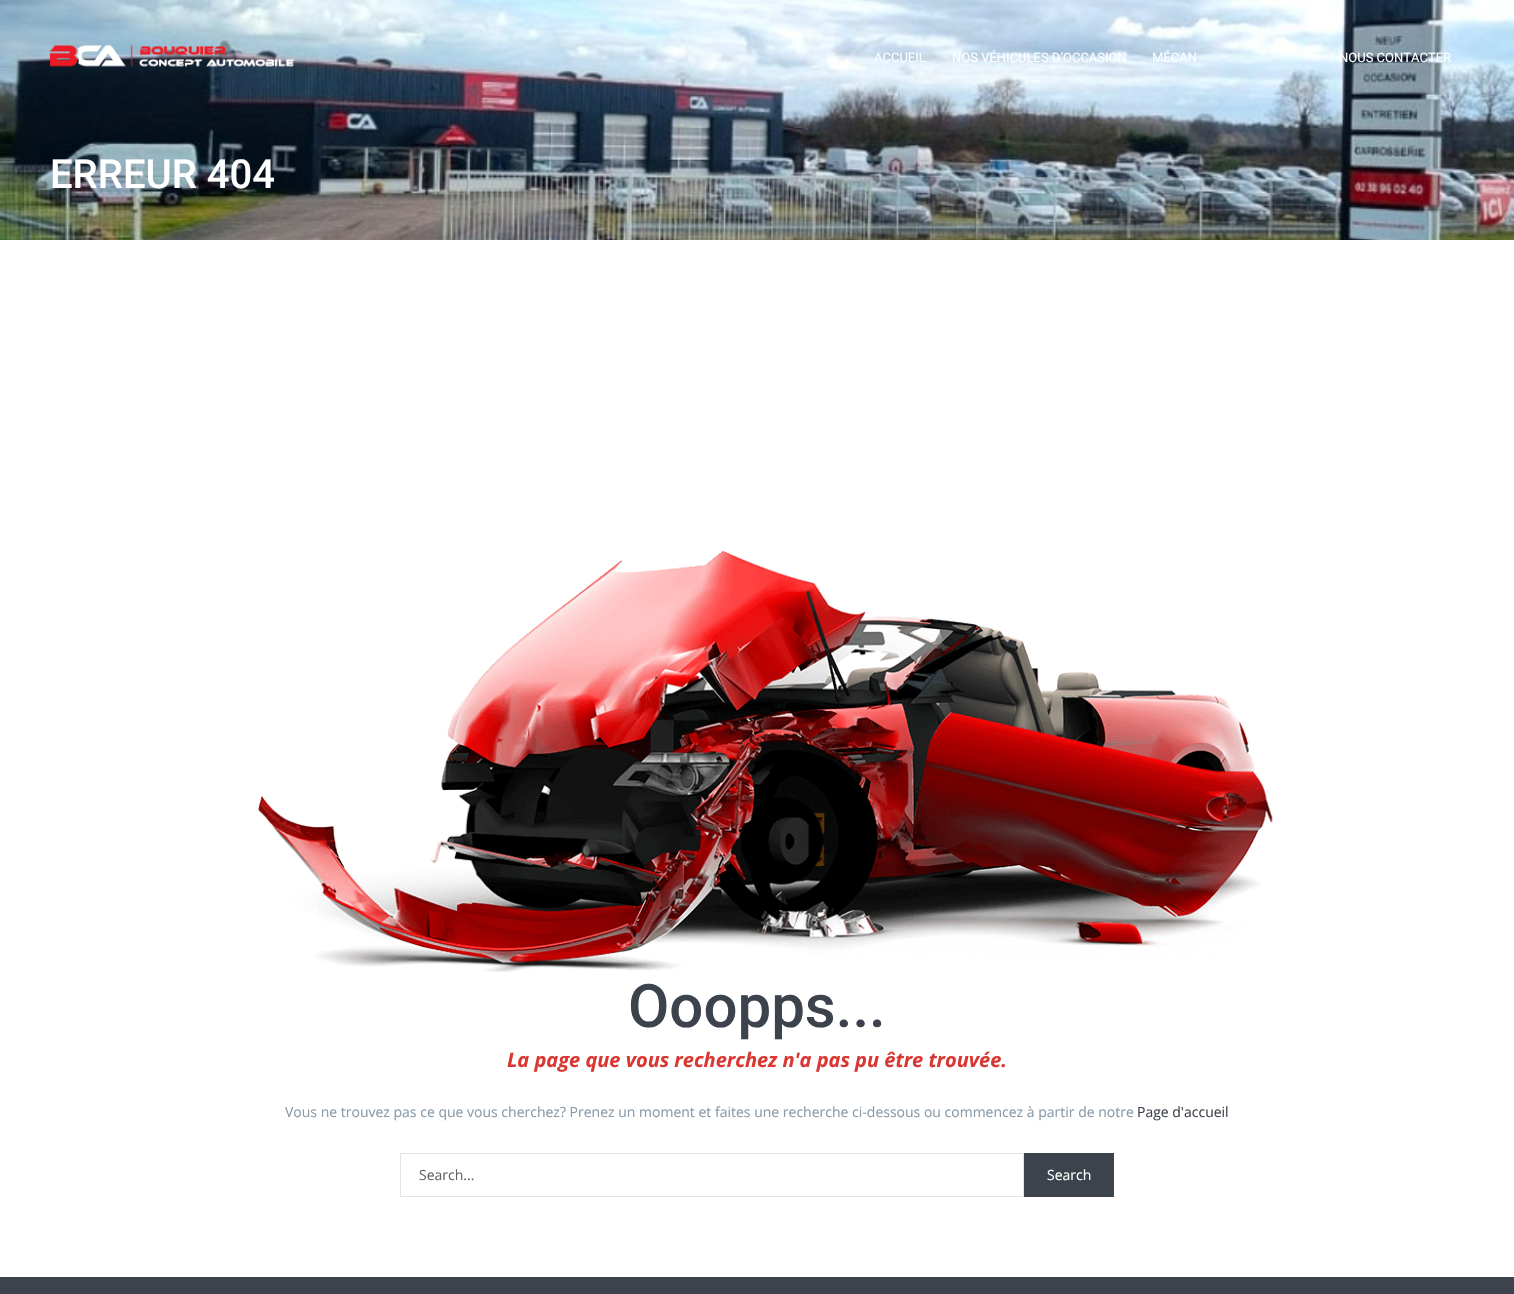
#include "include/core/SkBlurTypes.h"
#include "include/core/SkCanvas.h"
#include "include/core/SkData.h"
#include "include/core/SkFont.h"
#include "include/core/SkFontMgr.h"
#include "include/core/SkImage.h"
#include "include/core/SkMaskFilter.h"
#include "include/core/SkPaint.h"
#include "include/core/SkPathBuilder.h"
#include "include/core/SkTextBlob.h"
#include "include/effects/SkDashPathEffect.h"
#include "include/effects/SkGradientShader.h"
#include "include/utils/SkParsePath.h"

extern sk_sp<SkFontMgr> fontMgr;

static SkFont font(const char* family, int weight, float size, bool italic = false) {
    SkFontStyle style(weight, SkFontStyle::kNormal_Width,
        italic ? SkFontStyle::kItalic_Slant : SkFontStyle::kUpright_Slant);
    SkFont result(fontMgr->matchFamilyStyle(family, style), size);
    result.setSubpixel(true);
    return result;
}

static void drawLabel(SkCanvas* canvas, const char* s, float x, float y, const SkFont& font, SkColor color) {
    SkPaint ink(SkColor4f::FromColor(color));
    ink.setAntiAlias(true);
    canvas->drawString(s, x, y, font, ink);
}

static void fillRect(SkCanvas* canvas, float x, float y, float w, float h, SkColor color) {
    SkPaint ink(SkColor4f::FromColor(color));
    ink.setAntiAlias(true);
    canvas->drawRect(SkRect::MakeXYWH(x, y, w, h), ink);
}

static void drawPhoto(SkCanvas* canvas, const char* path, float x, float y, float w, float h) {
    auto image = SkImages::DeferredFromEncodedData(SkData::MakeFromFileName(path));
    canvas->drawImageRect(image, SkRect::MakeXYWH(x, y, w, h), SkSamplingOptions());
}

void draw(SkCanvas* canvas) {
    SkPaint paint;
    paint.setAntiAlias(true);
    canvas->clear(0xFFFFFFFF);
    drawPhoto(canvas, "assets/img2.png", 0, 0, 1514, 240);
    drawPhoto(canvas, "assets/img1.png", 50, 44, 244, 23);
    SkFont font1 = font("Roboto", 400, 13);
    drawLabel(canvas, "ACCUEIL", 874, 62, font1, 0xFFFFFFFF);
    drawLabel(canvas, "NOS VÉHICULES D’OCCASION", 952, 62, font1, 0xFFFFFFFF);
    drawLabel(canvas, "MÉCAN", 1152, 62, font1, 0xFFFFFFFF);
    drawLabel(canvas, "NOUS CONTACTER", 1339, 62, font1, 0xFFFFFFFF);
    SkFont font2 = font("Roboto", 500, 40);
    drawLabel(canvas, "ERREUR 404", 50, 188, font2, 0xFFFFFFFF);
    drawPhoto(canvas, "assets/img3.png", 258, 551, 1015, 421);
    SkFont font3 = font("Roboto", 500, 60);
    drawLabel(canvas, "Ooopps...", 628, 1027, font3, 0xFF3D434C);
    SkFont font4 = font("Open Sans", 700, 20, true);
    drawLabel(canvas, "La page que vous recherchez n'a pas pu être trouvée.", 507, 1067, font4, 0xFFDA3732);
    SkFont font5 = font("Open Sans", 400, 14);
    drawLabel(canvas, "Vous ne trouvez pas ce que vous cherchez? Prenez un moment et faites une recherche ci-dessous ou commencez à partir de notre", 285, 1117, font5, 0xFF8899A8);
    drawLabel(canvas, "Page d'accueil", 1137, 1117, font5, 0xFF3D434C);
    paint.setStroke(true);
    paint.setStrokeWidth(1);
    paint.setColor(0xFFE3E3E3);
    canvas->drawRect(SkRect::MakeXYWH(400.5f, 1153.5f, 623, 43), paint);
    drawLabel(canvas, "Search...", 419, 1180, font5, 0xFF626262);
    fillRect(canvas, 1024, 1153, 90, 44, 0xFF3D434C);
    drawLabel(canvas, "Search", 1047, 1180, font5, 0xFFFFFFFF);
    fillRect(canvas, 0, 1277, 1514, 17, 0xFF3D434C);
}
